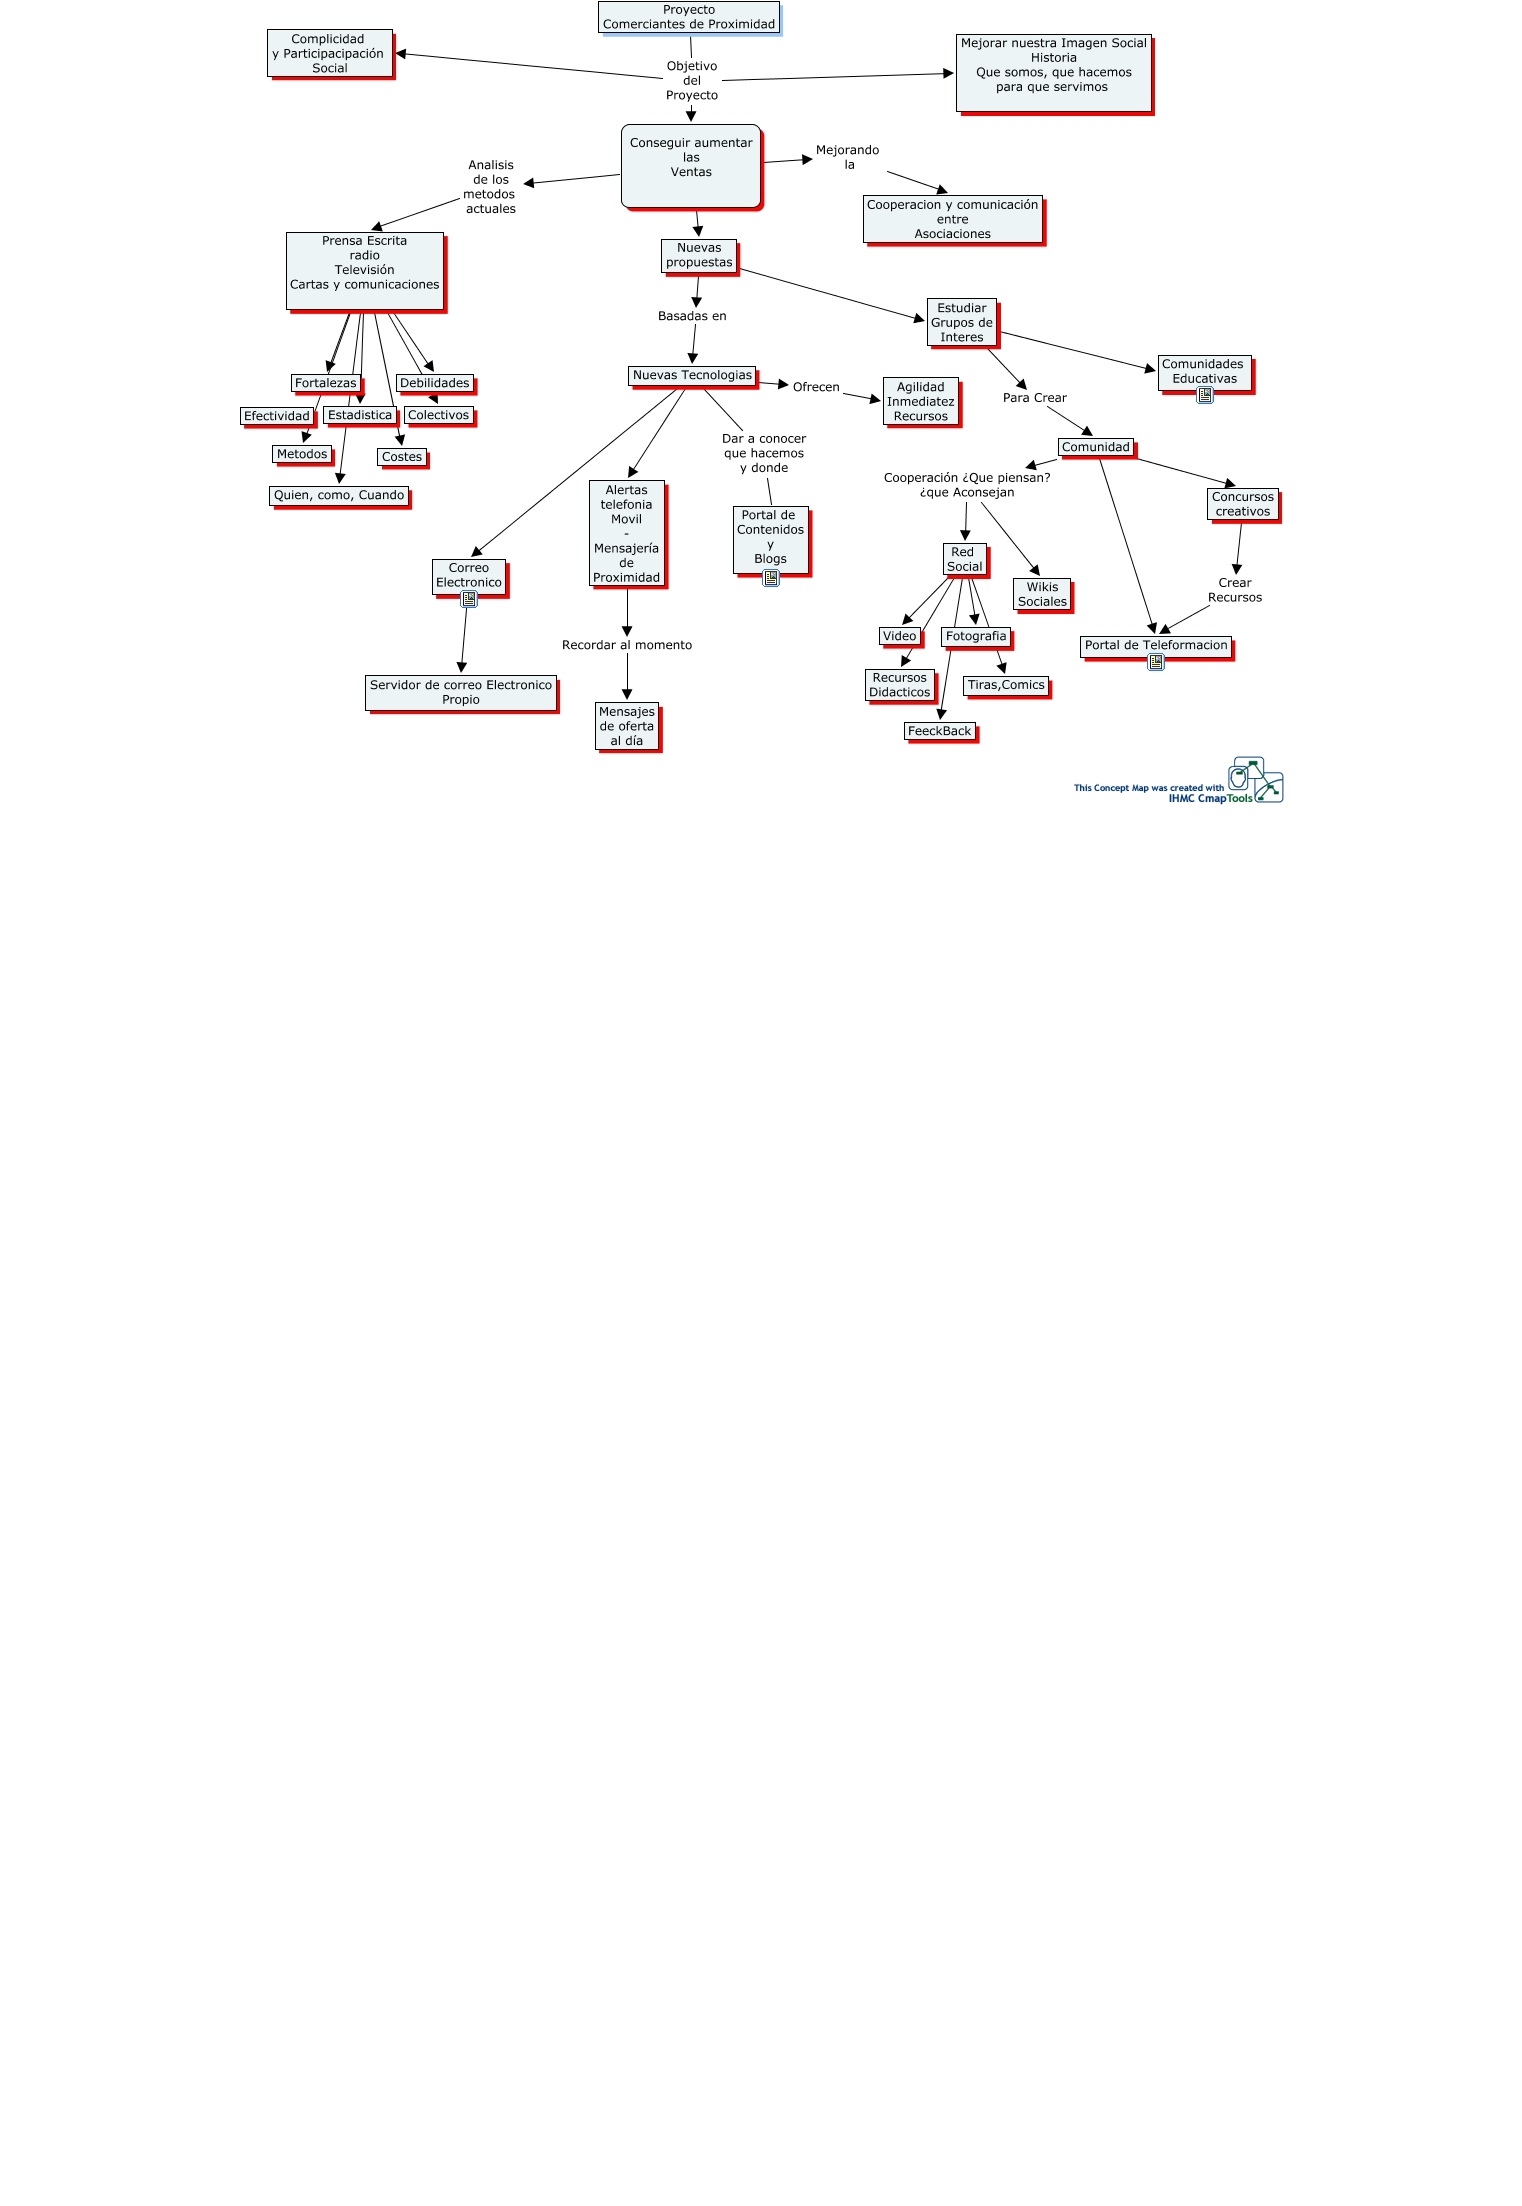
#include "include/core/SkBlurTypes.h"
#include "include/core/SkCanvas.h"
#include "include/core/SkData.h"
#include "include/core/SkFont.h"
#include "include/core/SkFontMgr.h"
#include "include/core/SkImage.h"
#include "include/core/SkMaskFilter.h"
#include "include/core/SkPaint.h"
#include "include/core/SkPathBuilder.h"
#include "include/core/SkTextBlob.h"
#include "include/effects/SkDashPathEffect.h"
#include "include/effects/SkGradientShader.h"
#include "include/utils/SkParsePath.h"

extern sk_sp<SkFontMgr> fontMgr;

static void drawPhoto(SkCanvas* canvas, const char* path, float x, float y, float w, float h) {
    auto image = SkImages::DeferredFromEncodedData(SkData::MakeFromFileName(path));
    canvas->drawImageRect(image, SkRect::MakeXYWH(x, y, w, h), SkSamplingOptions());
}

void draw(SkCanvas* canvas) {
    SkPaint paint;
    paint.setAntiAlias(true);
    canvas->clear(0xFFFFFFFF);
    drawPhoto(canvas, "assets/img1.png", 240, 1, 1044, 754);
    drawPhoto(canvas, "assets/img2.png", 1074, 756, 210, 49);
}
